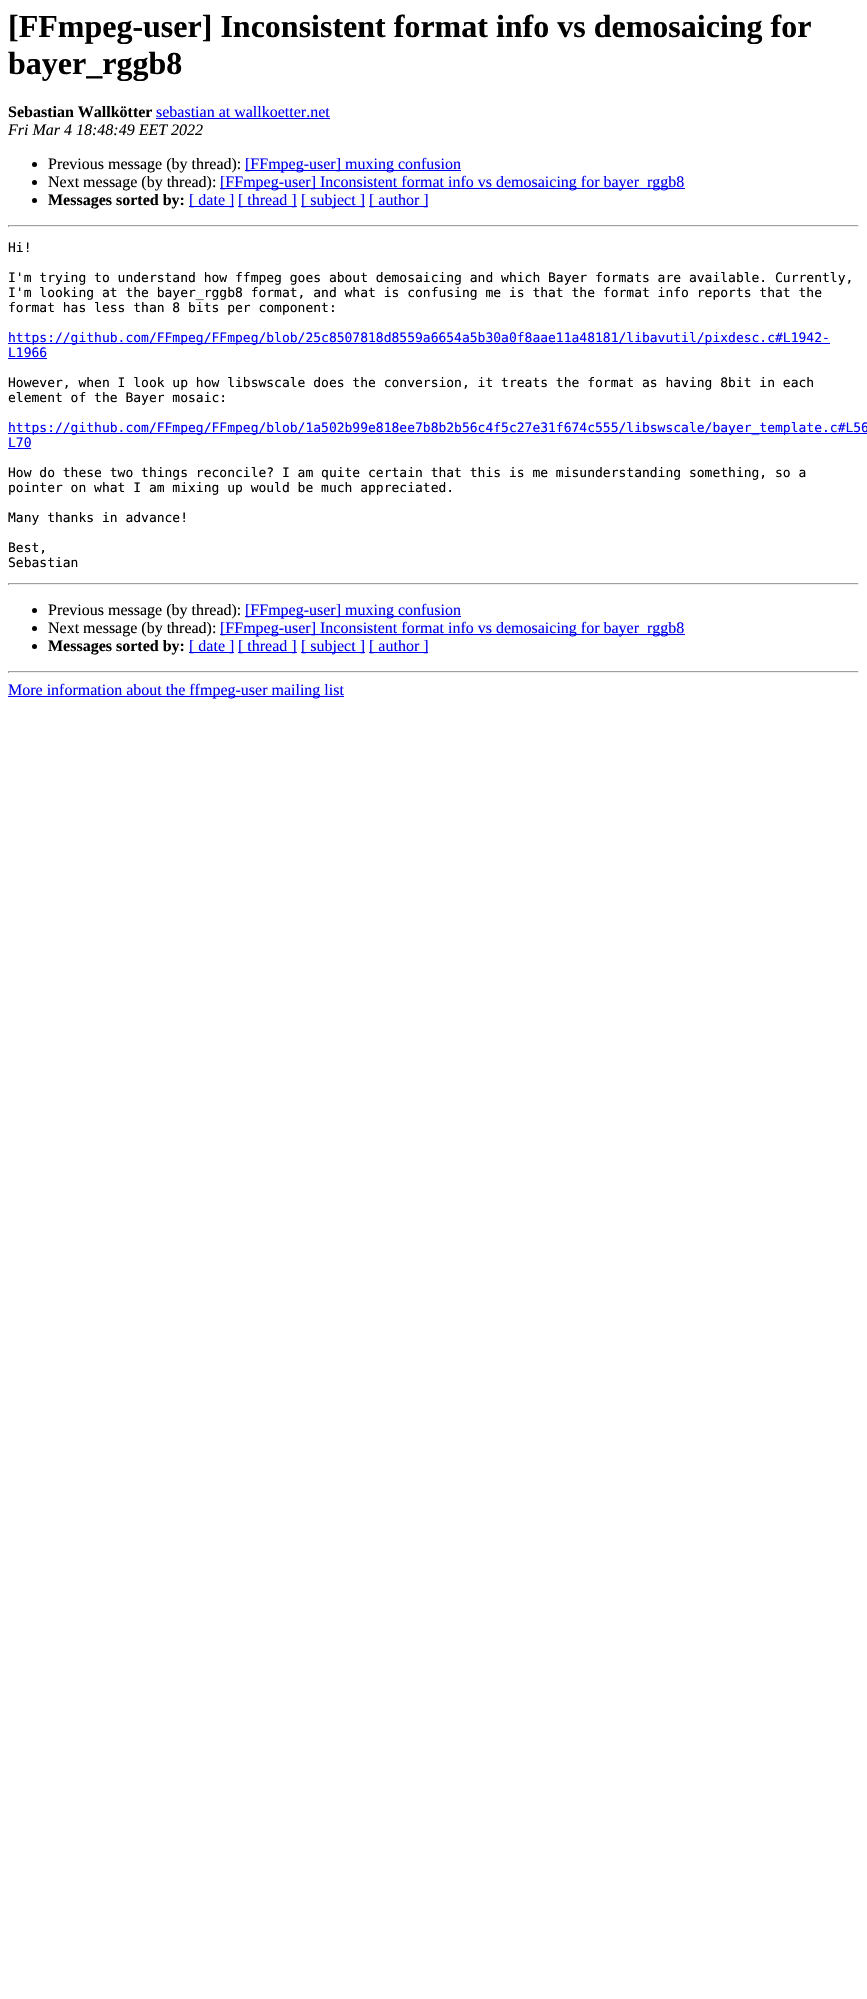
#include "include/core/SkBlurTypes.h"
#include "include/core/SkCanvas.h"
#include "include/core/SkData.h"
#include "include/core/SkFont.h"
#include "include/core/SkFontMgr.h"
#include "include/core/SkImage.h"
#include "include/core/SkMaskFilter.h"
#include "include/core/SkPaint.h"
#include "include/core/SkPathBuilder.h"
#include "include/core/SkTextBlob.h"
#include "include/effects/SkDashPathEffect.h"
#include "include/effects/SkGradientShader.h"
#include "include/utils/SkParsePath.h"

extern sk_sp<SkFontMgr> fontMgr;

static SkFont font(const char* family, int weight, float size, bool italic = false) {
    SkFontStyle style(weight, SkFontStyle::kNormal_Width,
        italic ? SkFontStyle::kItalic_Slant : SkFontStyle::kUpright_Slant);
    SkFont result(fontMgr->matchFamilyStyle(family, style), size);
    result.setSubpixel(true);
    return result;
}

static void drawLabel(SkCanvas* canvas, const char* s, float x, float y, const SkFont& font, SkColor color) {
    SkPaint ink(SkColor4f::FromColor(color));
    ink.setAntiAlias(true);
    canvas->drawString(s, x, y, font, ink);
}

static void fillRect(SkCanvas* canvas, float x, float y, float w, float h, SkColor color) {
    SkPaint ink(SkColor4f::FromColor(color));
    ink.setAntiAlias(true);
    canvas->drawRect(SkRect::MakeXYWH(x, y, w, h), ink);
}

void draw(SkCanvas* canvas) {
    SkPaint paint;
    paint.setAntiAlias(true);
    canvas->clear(0xFFFFFFFF);
    SkFont font1 = font("Liberation Serif", 700, 32);
    drawLabel(canvas, "[FFmpeg-user] Inconsistent format info vs demosaicing for", 8, 37, font1, 0xFF000000);
    drawLabel(canvas, "bayer_rggb8", 8, 74, font1, 0xFF000000);
    SkFont font2 = font("Liberation Serif", 700, 16);
    drawLabel(canvas, "Sebastian Wallkötter", 8, 117, font2, 0xFF000000);
    SkFont font3 = font("Liberation Serif", 400, 16);
    drawLabel(canvas, "sebastian at wallkoetter.net", 156, 117, font3, 0xFF0000EE);
    fillRect(canvas, 156, 118, 174, 1, 0xFF0000EE);
    SkFont font4 = font("Liberation Serif", 400, 16, true);
    drawLabel(canvas, "Fri Mar 4 18:48:49 EET 2022", 8, 135, font4, 0xFF000000);
    paint.setColor(0xFF000000);
    canvas->drawCircle(34.5f, 164.5f, 2.5f, paint);
    drawLabel(canvas, "Previous message (by thread):", 48, 169, font3, 0xFF000000);
    fillRect(canvas, 245, 170, 216, 1, 0xFF0000EE);
    drawLabel(canvas, "[FFmpeg-user] muxing confusion", 245, 169, font3, 0xFF0000EE);
    canvas->drawCircle(34.5f, 182.5f, 2.5f, paint);
    drawLabel(canvas, "Next message (by thread):", 48, 187, font3, 0xFF000000);
    fillRect(canvas, 220, 188, 465, 1, 0xFF0000EE);
    drawLabel(canvas, "[FFmpeg-user] Inconsistent format info vs demosaicing for bayer_rggb8", 220, 187, font3, 0xFF0000EE);
    canvas->drawCircle(34.5f, 200.5f, 2.5f, paint);
    drawLabel(canvas, "Messages sorted by:", 48, 205, font2, 0xFF000000);
    fillRect(canvas, 189, 206, 45, 1, 0xFF0000EE);
    drawLabel(canvas, "[ date ]", 189, 205, font3, 0xFF0000EE);
    fillRect(canvas, 238, 206, 59, 1, 0xFF0000EE);
    drawLabel(canvas, "[ thread ]", 238, 205, font3, 0xFF0000EE);
    fillRect(canvas, 301, 206, 64, 1, 0xFF0000EE);
    drawLabel(canvas, "[ subject ]", 301, 205, font3, 0xFF0000EE);
    fillRect(canvas, 369, 206, 59, 1, 0xFF0000EE);
    drawLabel(canvas, "[ author ]", 369, 205, font3, 0xFF0000EE);
    fillRect(canvas, 8, 225, 851, 1, 0xFF9F9F9F);
    fillRect(canvas, 858, 225, 1, 2, 0xFFEEEEEE);
    fillRect(canvas, 8, 226, 851, 1, 0xFFEEEEEE);
    fillRect(canvas, 8, 225, 1, 2, 0xFF9F9F9F);
    SkFont font5 = font("DejaVu Sans Mono", 400, 13);
    drawLabel(canvas, "Hi!", 8, 252, font5, 0xFF000000);
    drawLabel(canvas, "I'm trying to understand how ffmpeg goes about demosaicing and which Bayer formats are available. Currently,", 8, 282, font5, 0xFF000000);
    drawLabel(canvas, "I'm looking at the bayer_rggb8 format, and what is confusing me is that the format info reports that the", 8, 297, font5, 0xFF000000);
    drawLabel(canvas, "format has less than 8 bits per component:", 8, 312, font5, 0xFF000000);
    fillRect(canvas, 8, 343, 822, 1, 0xFF0000EE);
    drawLabel(canvas, "https://github.com/FFmpeg/FFmpeg/blob/25c8507818d8559a6654a5b30a0f8aae11a48181/libavutil/pixdesc.c#L1942-", 8, 342, font5, 0xFF0000EE);
    drawLabel(canvas, "L1966", 8, 357, font5, 0xFF0000EE);
    fillRect(canvas, 8, 358, 39, 1, 0xFF0000EE);
    drawLabel(canvas, "However, when I look up how libswscale does the conversion, it treats the format as having 8bit in each", 8, 387, font5, 0xFF000000);
    drawLabel(canvas, "element of the Bayer mosaic:", 8, 402, font5, 0xFF000000);
    fillRect(canvas, 8, 433, 859, 1, 0xFF0000EE);
    drawLabel(canvas, "https://github.com/FFmpeg/FFmpeg/blob/1a502b99e818ee7b8b2b56c4f5c27e31f674c555/libswscale/bayer_template.c#L56", 8, 432, font5, 0xFF0000EE);
    drawLabel(canvas, "L70", 8, 447, font5, 0xFF0000EE);
    fillRect(canvas, 8, 448, 23, 1, 0xFF0000EE);
    drawLabel(canvas, "How do these two things reconcile? I am quite certain that this is me misunderstanding something, so a", 8, 477, font5, 0xFF000000);
    drawLabel(canvas, "pointer on what I am mixing up would be much appreciated.", 8, 492, font5, 0xFF000000);
    drawLabel(canvas, "Many thanks in advance!", 8, 522, font5, 0xFF000000);
    drawLabel(canvas, "Best,", 8, 552, font5, 0xFF000000);
    drawLabel(canvas, "Sebastian", 8, 567, font5, 0xFF000000);
    fillRect(canvas, 8, 583, 851, 1, 0xFF9F9F9F);
    fillRect(canvas, 858, 583, 1, 2, 0xFFEEEEEE);
    fillRect(canvas, 8, 584, 851, 1, 0xFFEEEEEE);
    fillRect(canvas, 8, 583, 1, 2, 0xFF9F9F9F);
    canvas->drawCircle(34.5f, 610.5f, 2.5f, paint);
    drawLabel(canvas, "Previous message (by thread):", 48, 615, font3, 0xFF000000);
    fillRect(canvas, 245, 616, 216, 1, 0xFF0000EE);
    drawLabel(canvas, "[FFmpeg-user] muxing confusion", 245, 615, font3, 0xFF0000EE);
    canvas->drawCircle(34.5f, 628.5f, 2.5f, paint);
    drawLabel(canvas, "Next message (by thread):", 48, 633, font3, 0xFF000000);
    fillRect(canvas, 220, 634, 465, 1, 0xFF0000EE);
    drawLabel(canvas, "[FFmpeg-user] Inconsistent format info vs demosaicing for bayer_rggb8", 220, 633, font3, 0xFF0000EE);
    canvas->drawCircle(34.5f, 646.5f, 2.5f, paint);
    drawLabel(canvas, "Messages sorted by:", 48, 651, font2, 0xFF000000);
    fillRect(canvas, 189, 652, 45, 1, 0xFF0000EE);
    drawLabel(canvas, "[ date ]", 189, 651, font3, 0xFF0000EE);
    fillRect(canvas, 238, 652, 59, 1, 0xFF0000EE);
    drawLabel(canvas, "[ thread ]", 238, 651, font3, 0xFF0000EE);
    fillRect(canvas, 301, 652, 64, 1, 0xFF0000EE);
    drawLabel(canvas, "[ subject ]", 301, 651, font3, 0xFF0000EE);
    fillRect(canvas, 369, 652, 59, 1, 0xFF0000EE);
    drawLabel(canvas, "[ author ]", 369, 651, font3, 0xFF0000EE);
    fillRect(canvas, 8, 671, 851, 1, 0xFF9F9F9F);
    fillRect(canvas, 858, 671, 1, 2, 0xFFEEEEEE);
    fillRect(canvas, 8, 672, 851, 1, 0xFFEEEEEE);
    fillRect(canvas, 8, 671, 1, 2, 0xFF9F9F9F);
    fillRect(canvas, 8, 696, 336, 1, 0xFF0000EE);
    drawLabel(canvas, "More information about the ffmpeg-user mailing list", 8, 695, font3, 0xFF0000EE);
}
